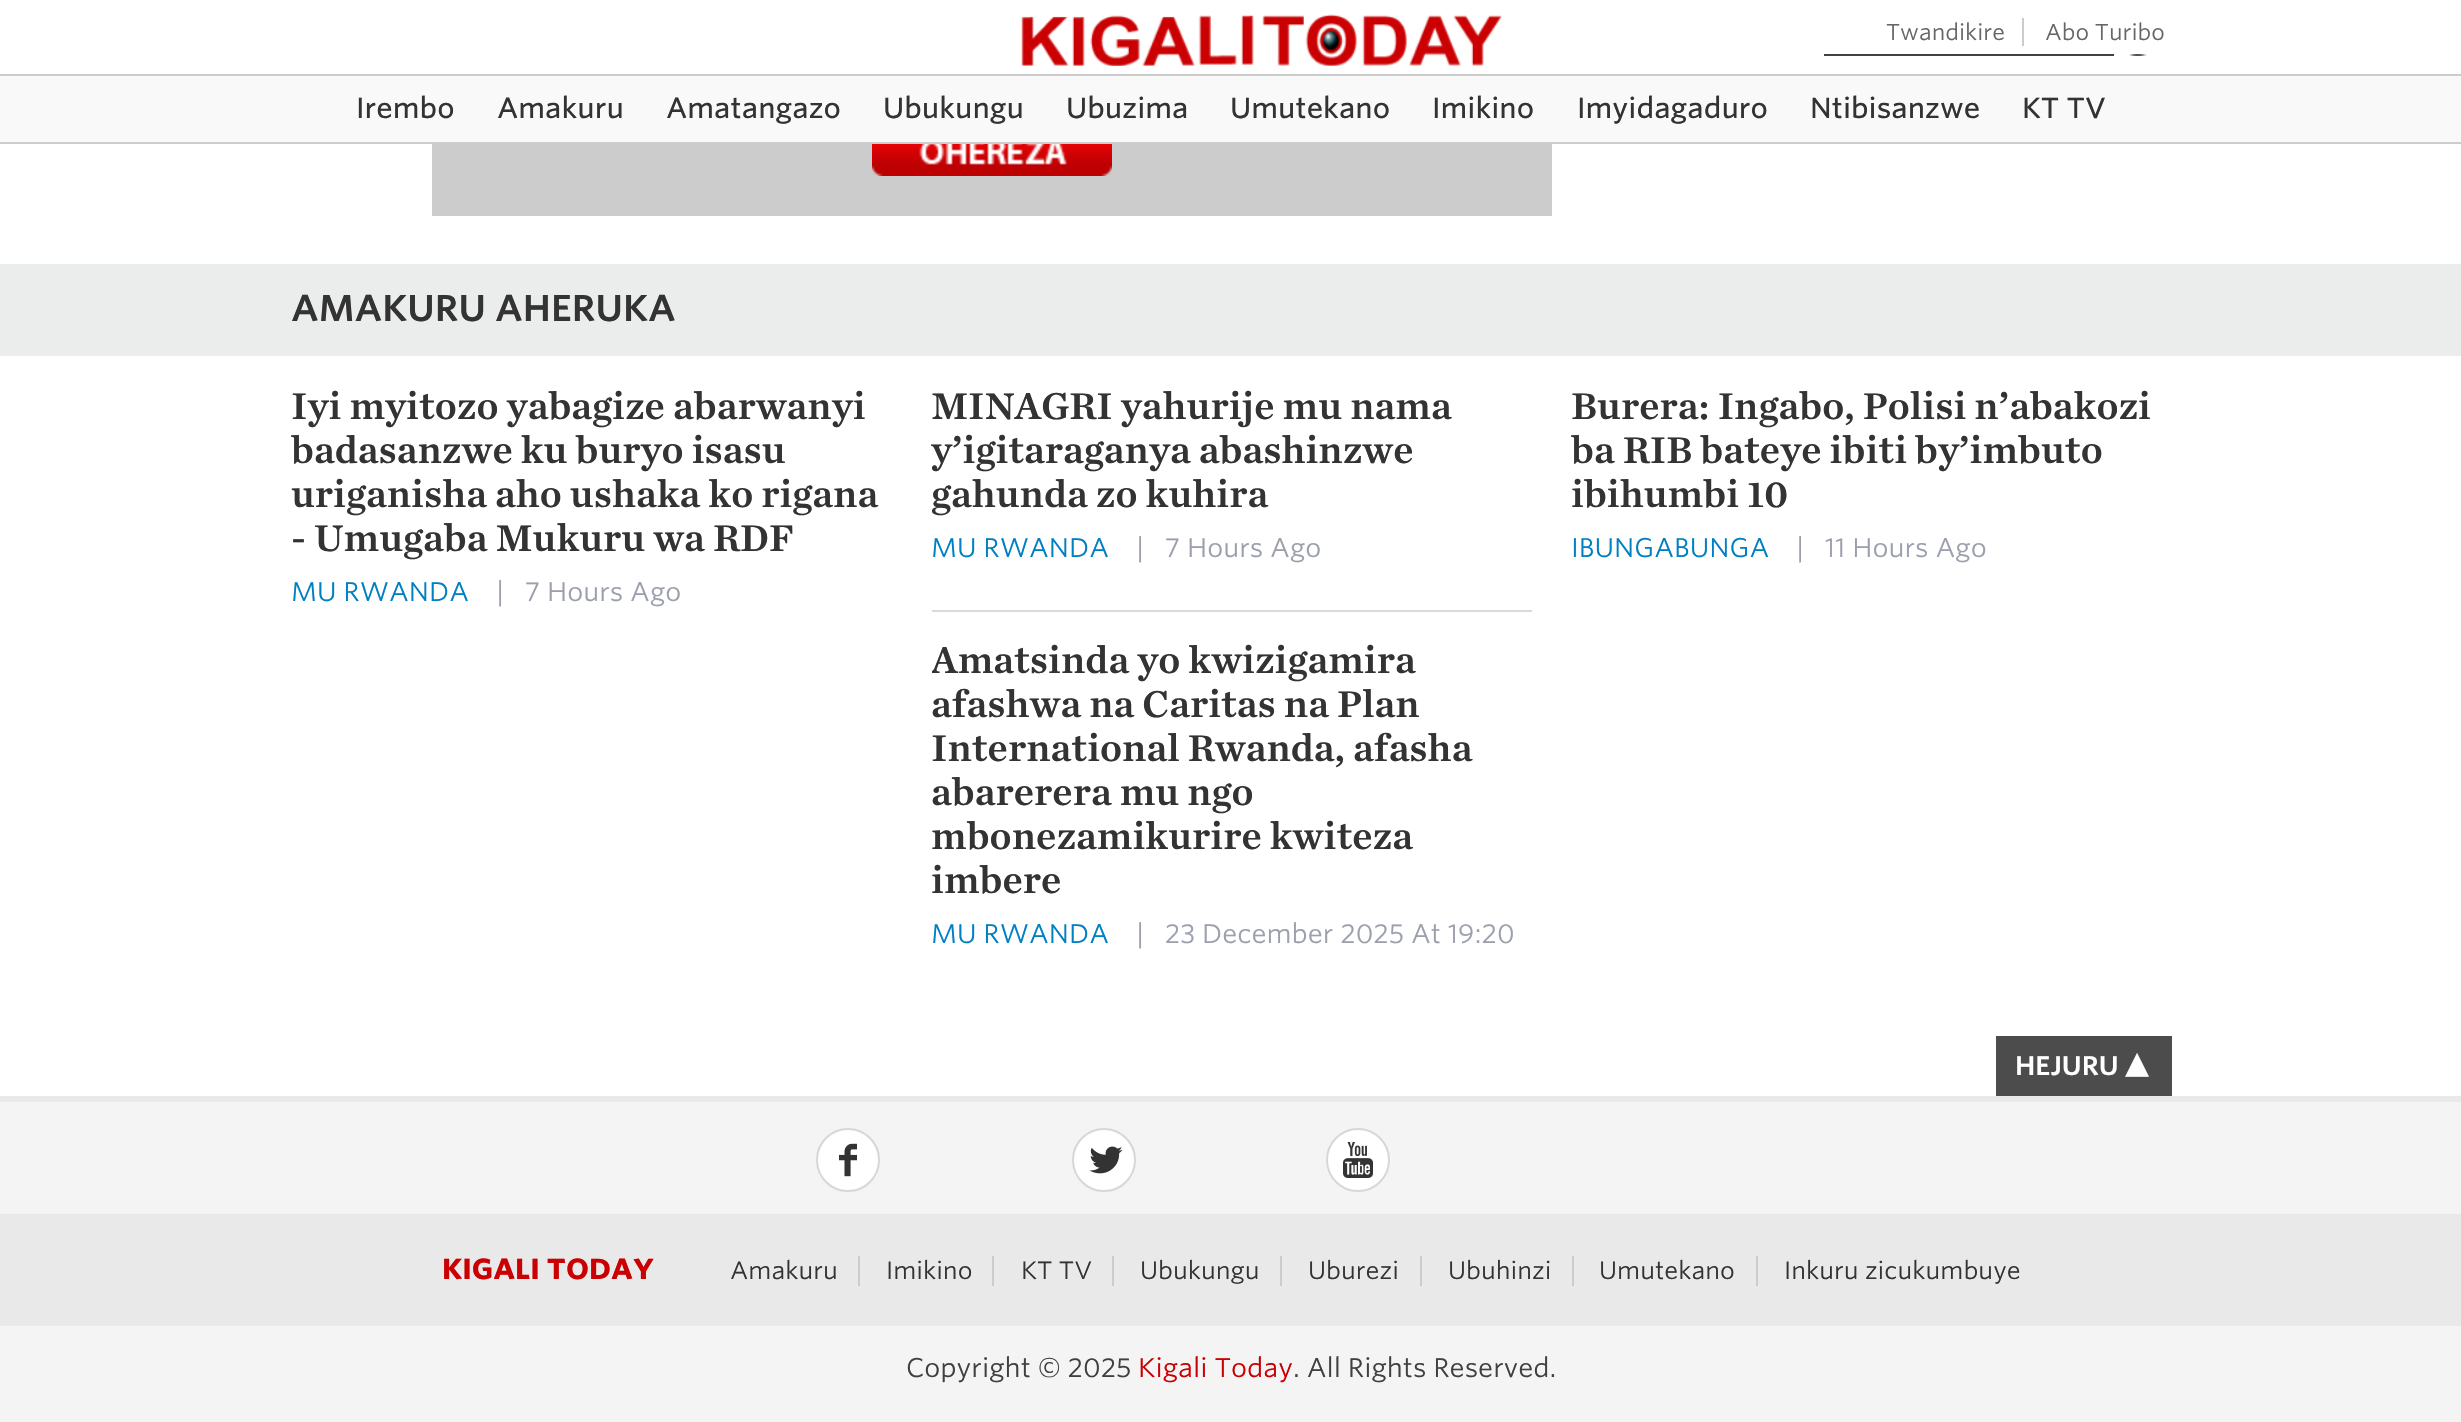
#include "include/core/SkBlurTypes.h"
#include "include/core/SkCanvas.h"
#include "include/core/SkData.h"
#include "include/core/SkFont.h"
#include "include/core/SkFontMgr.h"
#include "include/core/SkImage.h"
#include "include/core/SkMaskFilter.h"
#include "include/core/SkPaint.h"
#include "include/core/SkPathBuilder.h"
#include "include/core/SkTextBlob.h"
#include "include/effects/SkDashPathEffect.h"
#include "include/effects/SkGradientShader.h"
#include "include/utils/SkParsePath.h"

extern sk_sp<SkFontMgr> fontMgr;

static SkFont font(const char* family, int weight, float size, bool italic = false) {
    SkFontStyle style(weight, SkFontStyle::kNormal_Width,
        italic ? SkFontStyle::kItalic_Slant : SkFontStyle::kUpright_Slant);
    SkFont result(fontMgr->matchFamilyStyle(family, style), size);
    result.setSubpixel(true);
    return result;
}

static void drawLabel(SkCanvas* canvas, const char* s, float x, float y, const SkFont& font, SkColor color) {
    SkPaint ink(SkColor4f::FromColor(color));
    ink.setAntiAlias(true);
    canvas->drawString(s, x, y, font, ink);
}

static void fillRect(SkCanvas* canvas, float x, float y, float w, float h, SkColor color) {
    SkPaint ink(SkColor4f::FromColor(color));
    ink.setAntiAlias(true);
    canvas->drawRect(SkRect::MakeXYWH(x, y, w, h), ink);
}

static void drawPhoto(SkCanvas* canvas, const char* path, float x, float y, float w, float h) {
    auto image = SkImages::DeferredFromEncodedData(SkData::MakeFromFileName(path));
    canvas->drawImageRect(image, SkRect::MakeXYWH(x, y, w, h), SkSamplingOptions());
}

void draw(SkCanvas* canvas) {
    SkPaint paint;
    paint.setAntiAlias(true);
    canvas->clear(0xFFFFFFFF);
    fillRect(canvas, 0, 142, 2461, 2, 0xFFCCCCCC);
    drawPhoto(canvas, "assets/img1.png", 1021, 14, 481, 52);
    SkFont font1 = font("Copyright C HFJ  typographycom", 300, 22);
    drawLabel(canvas, "Twandikire", 1886, 40, font1, 0xFF666666);
    fillRect(canvas, 2022, 18, 2, 28, 0xFFCCCCCC);
    drawLabel(canvas, "Abo Turibo", 2045, 40, font1, 0xFF666666);
    fillRect(canvas, 0, 76, 2461, 66, 0xFFF9F9F9);
    fillRect(canvas, 0, 74, 2461, 2, 0xFFCCCCCC);
    SkFont font2 = font("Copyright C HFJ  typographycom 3", 300, 28);
    drawLabel(canvas, "Ntibisanzwe", 1810, 118, font2, 0xFF333333);
    canvas->save();
    canvas->clipRect(SkRect::MakeXYWH(1232, 16, 934, 40));
    paint.setStroke(true);
    paint.setStrokeWidth(2);
    paint.setColor(0xFF454040);
    canvas->drawRect(SkRect::MakeXYWH(1825, 55, 288, 40), paint);
    canvas->restore();
    drawPhoto(canvas, "assets/img2.png", 2129, 54, 18, 2);
    drawLabel(canvas, "Irembo", 356, 118, font2, 0xFF333333);
    drawLabel(canvas, "Amakuru", 497, 118, font2, 0xFF333333);
    drawLabel(canvas, "Amatangazo", 666, 118, font2, 0xFF333333);
    drawLabel(canvas, "Ubukungu", 883, 118, font2, 0xFF333333);
    drawLabel(canvas, "Ubuzima", 1066, 118, font2, 0xFF333333);
    drawLabel(canvas, "Umutekano", 1230, 118, font2, 0xFF333333);
    drawLabel(canvas, "Imikino", 1432, 118, font2, 0xFF333333);
    drawLabel(canvas, "Imyidagaduro", 1577, 118, font2, 0xFF333333);
    drawLabel(canvas, "KT TV", 2022, 118, font2, 0xFF333333);
    fillRect(canvas, 432, 144, 1120, 72, 0xFFCCCCCC);
    drawPhoto(canvas, "assets/img3.png", 872, 144, 240, 32);
    fillRect(canvas, 0, 264, 2461, 92, 0xFFEBEDEC);
    SkFont font3 = font("Copyright C HFJ  typographycom", 400, 36);
    drawLabel(canvas, "AMAKURU AHERUKA", 291, 321, font3, 0xFF333333);
    SkFont font4 = font("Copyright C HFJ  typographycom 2", 300, 36);
    drawLabel(canvas, "Iyi myitozo yabagize abarwanyi", 291, 419, font4, 0xFF333333);
    drawLabel(canvas, "badasanzwe ku buryo isasu", 291, 463, font4, 0xFF333333);
    drawLabel(canvas, "uriganisha aho ushaka ko rigana", 291, 507, font4, 0xFF333333);
    drawLabel(canvas, "- Umugaba Mukuru wa RDF", 291, 551, font4, 0xFF333333);
    SkFont font5 = font("Copyright C HFJ  typographycom", 300, 26);
    drawLabel(canvas, "MU RWANDA", 291, 601, font5, 0xFF0080C3);
    drawLabel(canvas, "|   7 Hours Ago", 496, 601, font5, 0xFF9CA0AD);
    drawLabel(canvas, "MINAGRI yahurije mu nama", 931, 419, font4, 0xFF333333);
    drawLabel(canvas, "y’igitaraganya abashinzwe", 931, 463, font4, 0xFF333333);
    drawLabel(canvas, "gahunda zo kuhira", 931, 507, font4, 0xFF333333);
    drawLabel(canvas, "MU RWANDA", 931, 557, font5, 0xFF0080C3);
    drawLabel(canvas, "|   7 Hours Ago", 1136, 557, font5, 0xFF9CA0AD);
    drawLabel(canvas, "Burera: Ingabo, Polisi n’abakozi", 1571, 419, font4, 0xFF333333);
    drawLabel(canvas, "ba RIB bateye ibiti by’imbuto", 1571, 463, font4, 0xFF333333);
    drawLabel(canvas, "ibihumbi 10", 1571, 507, font4, 0xFF333333);
    drawLabel(canvas, "IBUNGABUNGA", 1571, 557, font5, 0xFF0080C3);
    drawLabel(canvas, "|   11 Hours Ago", 1796, 557, font5, 0xFF9CA0AD);
    fillRect(canvas, 932, 610, 600, 2, 0xFFDADADA);
    canvas->save();
    canvas->clipRect(SkRect::MakeXYWH(932, 612, 600, 344));
    drawLabel(canvas, "Amatsinda yo kwizigamira", 931, 673, font4, 0xFF333333);
    canvas->restore();
    drawLabel(canvas, "afashwa na Caritas na Plan", 931, 717, font4, 0xFF333333);
    drawLabel(canvas, "International Rwanda, afasha", 931, 761, font4, 0xFF333333);
    drawLabel(canvas, "abarerera mu ngo", 931, 805, font4, 0xFF333333);
    drawLabel(canvas, "mbonezamikurire kwiteza", 931, 849, font4, 0xFF333333);
    drawLabel(canvas, "imbere", 931, 893, font4, 0xFF333333);
    drawLabel(canvas, "MU RWANDA", 931, 943, font5, 0xFF0080C3);
    drawLabel(canvas, "|   23 December 2025 At 19:20", 1136, 943, font5, 0xFF9CA0AD);
    fillRect(canvas, 0, 1102, 2461, 320, 0xFFF4F4F4);
    fillRect(canvas, 0, 1096, 2461, 6, 0xFFE9E9E9);
    fillRect(canvas, 1996, 1036, 176, 60, 0xFF4C4C4C);
    SkFont font6 = font("Copyright C HFJ  typographycom", 400, 26);
    drawLabel(canvas, "HEJURU", 2015, 1075, font6, 0xFFFFFFFF);
    SkFont font7 = font("DejaVu Sans", 400, 31);
    canvas->save();
    canvas->rotate(90, 2129, 1053);
    drawLabel(canvas, "◀", 2129, 1053, font7, 0xFFFFFFFF);
    canvas->restore();
    paint.setStroke(false);
    paint.setColor(0xFFFFFFFF);
    canvas->drawCircle(848, 1160, 31, paint);
    paint.setStroke(true);
    paint.setColor(0xFFD6D8D8);
    canvas->drawCircle(848, 1160, 31, paint);
    drawPhoto(canvas, "assets/img4.png", 839, 1143, 18, 34);
    paint.setStroke(false);
    paint.setColor(0xFFFFFFFF);
    canvas->drawCircle(1104, 1160, 31, paint);
    paint.setStroke(true);
    paint.setColor(0xFFD6D8D8);
    canvas->drawCircle(1104, 1160, 31, paint);
    drawPhoto(canvas, "assets/img5.png", 1089, 1146, 34, 28);
    paint.setStroke(false);
    paint.setColor(0xFFFFFFFF);
    canvas->drawCircle(1358, 1160, 31, paint);
    paint.setStroke(true);
    paint.setColor(0xFFD6D8D8);
    canvas->drawCircle(1358, 1160, 31, paint);
    drawPhoto(canvas, "assets/img6.png", 1343, 1142, 30, 36);
    fillRect(canvas, 0, 1214, 2461, 112, 0xFFE9E9E9);
    SkFont font8 = font("Copyright C HFJ  typographycom 2", 400, 28);
    drawLabel(canvas, "KIGALI TODAY", 442, 1279, font8, 0xFFCA0002);
    fillRect(canvas, 858, 1256, 2, 30, 0xFFCCCCCC);
    SkFont font9 = font("Copyright C HFJ  typographycom", 300, 24);
    drawLabel(canvas, "Amakuru", 730, 1279, font9, 0xFF333333);
    fillRect(canvas, 992, 1256, 2, 30, 0xFFCCCCCC);
    drawLabel(canvas, "Imikino", 886, 1279, font9, 0xFF333333);
    fillRect(canvas, 1112, 1256, 2, 30, 0xFFCCCCCC);
    drawLabel(canvas, "KT TV", 1021, 1279, font9, 0xFF333333);
    fillRect(canvas, 1280, 1256, 2, 30, 0xFFCCCCCC);
    drawLabel(canvas, "Ubukungu", 1140, 1279, font9, 0xFF333333);
    fillRect(canvas, 1420, 1256, 2, 30, 0xFFCCCCCC);
    drawLabel(canvas, "Uburezi", 1308, 1279, font9, 0xFF333333);
    fillRect(canvas, 1572, 1256, 2, 30, 0xFFCCCCCC);
    drawLabel(canvas, "Ubuhinzi", 1448, 1279, font9, 0xFF333333);
    fillRect(canvas, 1756, 1256, 2, 30, 0xFFCCCCCC);
    drawLabel(canvas, "Umutekano", 1599, 1279, font9, 0xFF333333);
    drawLabel(canvas, "Inkuru zicukumbuye", 1784, 1279, font9, 0xFF333333);
    drawLabel(canvas, "Copyright © 2025", 906, 1377, font5, 0xFF404040);
    drawLabel(canvas, "Kigali Today", 1138, 1377, font5, 0xFFCA0002);
    drawLabel(canvas, ". All Rights Reserved.", 1293, 1377, font5, 0xFF404040);
}
